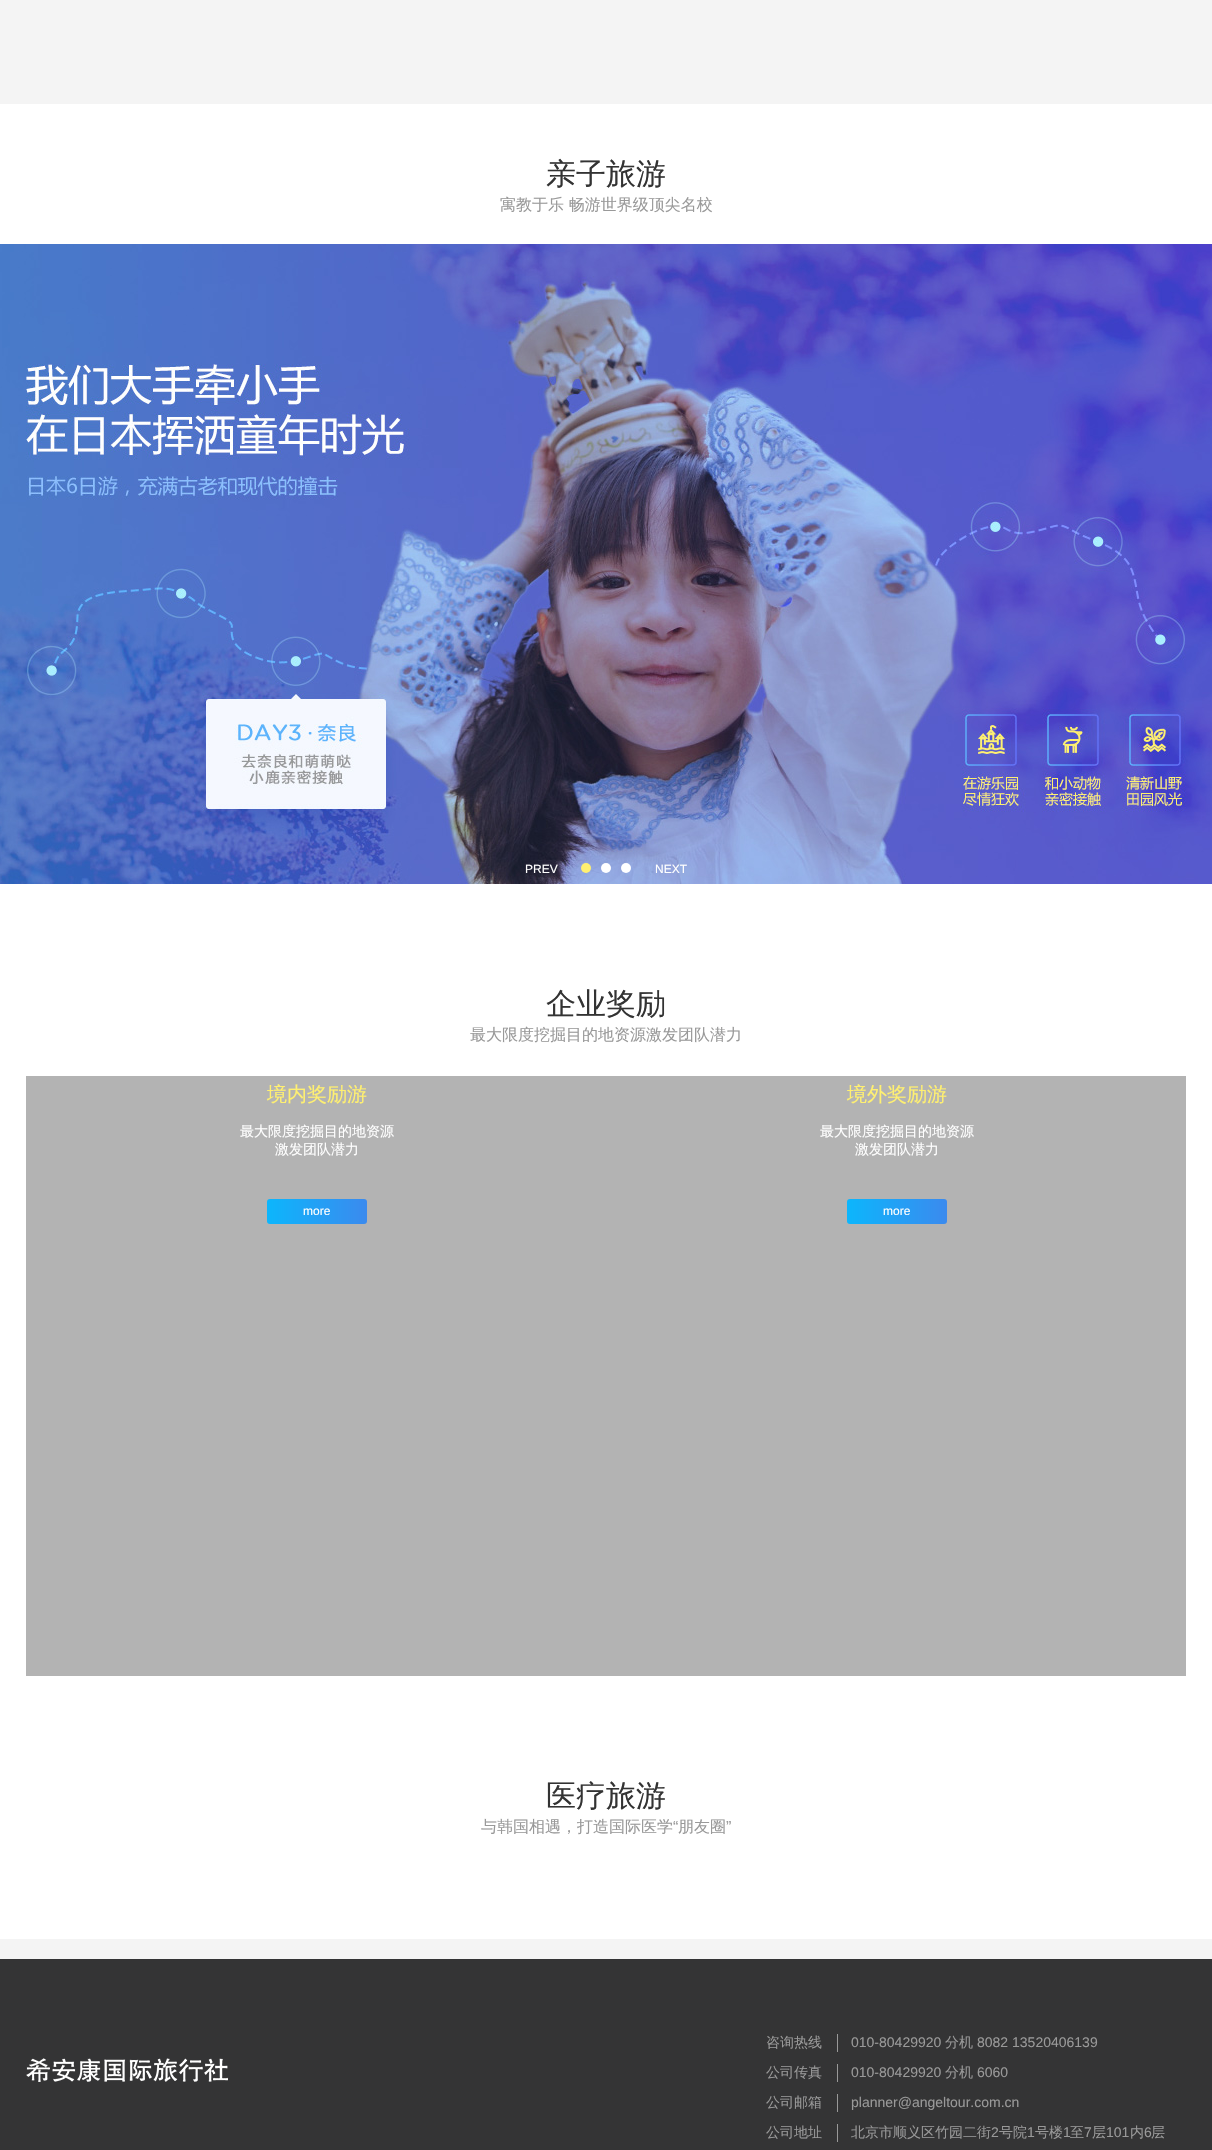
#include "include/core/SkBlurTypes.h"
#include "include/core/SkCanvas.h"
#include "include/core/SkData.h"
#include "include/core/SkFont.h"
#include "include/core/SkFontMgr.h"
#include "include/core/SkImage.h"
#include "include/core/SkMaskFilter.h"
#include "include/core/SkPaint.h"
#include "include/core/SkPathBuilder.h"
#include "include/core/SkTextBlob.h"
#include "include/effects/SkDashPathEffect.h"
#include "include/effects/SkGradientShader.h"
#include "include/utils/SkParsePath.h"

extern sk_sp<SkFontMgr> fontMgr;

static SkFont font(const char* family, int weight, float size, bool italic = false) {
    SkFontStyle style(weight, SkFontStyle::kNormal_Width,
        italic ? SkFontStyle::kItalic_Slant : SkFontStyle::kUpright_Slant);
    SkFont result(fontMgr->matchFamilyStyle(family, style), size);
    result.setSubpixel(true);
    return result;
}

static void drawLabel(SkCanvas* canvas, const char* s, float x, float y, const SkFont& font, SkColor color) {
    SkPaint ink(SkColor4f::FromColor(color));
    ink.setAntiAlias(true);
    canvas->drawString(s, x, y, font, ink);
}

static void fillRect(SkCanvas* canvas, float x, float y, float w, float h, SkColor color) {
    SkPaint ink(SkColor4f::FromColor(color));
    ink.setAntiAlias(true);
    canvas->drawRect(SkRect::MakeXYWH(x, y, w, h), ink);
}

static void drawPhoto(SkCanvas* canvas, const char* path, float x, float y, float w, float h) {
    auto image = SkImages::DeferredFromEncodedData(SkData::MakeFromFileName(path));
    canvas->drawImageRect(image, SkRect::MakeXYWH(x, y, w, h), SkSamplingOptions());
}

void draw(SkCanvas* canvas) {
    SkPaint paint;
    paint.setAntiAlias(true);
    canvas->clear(0xFFF4F4F4);
    fillRect(canvas, 0, 104, 1212, 1835, 0xFFFFFFFF);
    SkFont font1 = font("WenQuanYi Zen Hei", 500, 30);
    drawLabel(canvas, "亲子旅游", 546, 184, font1, 0xFF333333);
    SkFont font2 = font("WenQuanYi Zen Hei", 500, 16);
    drawLabel(canvas, "寓教于乐 畅游世界级顶尖名校", 500, 210, font2, 0xFF999999);
    drawPhoto(canvas, "assets/img1.png", 0, 244, 1212, 640);
    SkFont font3 = font("Liberation Sans", 400, 12);
    drawLabel(canvas, "PREV", 525, 873, font3, 0xFFFFFFFF);
    paint.setColor(0xFFFFF071);
    canvas->drawCircle(586, 868, 5, paint);
    paint.setColor(0xFFFFFFFF);
    canvas->drawCircle(606, 868, 5, paint);
    canvas->drawCircle(626, 868, 5, paint);
    drawLabel(canvas, "NEXT", 655, 873, font3, 0xFFFFFFFF);
    drawLabel(canvas, "企业奖励", 546, 1014, font1, 0xFF333333);
    drawLabel(canvas, "最大限度挖掘目的地资源激发团队潜力", 470, 1040, font2, 0xFF999999);
    fillRect(canvas, 26, 1076, 1160, 600, 0xFFB3B3B3);
    SkFont font4 = font("WenQuanYi Zen Hei", 500, 20);
    drawLabel(canvas, "境内奖励游", 267, 1101, font4, 0xFFFFF071);
    SkFont font5 = font("WenQuanYi Zen Hei", 500, 14);
    drawLabel(canvas, "最大限度挖掘目的地资源", 240, 1136, font5, 0xFFFFFFFF);
    drawLabel(canvas, "激发团队潜力", 275, 1154, font5, 0xFFFFFFFF);
    {
        const SkColor colors[] = {0xFF0CB6FC, 0xFF3B8AEE};
        const float stops[] = {0, 1};
        const SkPoint ends[] = {{267, 1212}, {367, 1212}};
        paint.setShader(SkGradientShader::MakeLinear(ends, colors, stops, 2, SkTileMode::kClamp));
        paint.setAlpha(255);
    }
    canvas->drawRoundRect(SkRect::MakeXYWH(267, 1199, 100, 25), 3, 3, paint);
    drawLabel(canvas, "more", 303, 1215, font3, 0xFFFFFFFF);
    drawLabel(canvas, "境外奖励游", 847, 1101, font4, 0xFFFFF071);
    drawLabel(canvas, "最大限度挖掘目的地资源", 820, 1136, font5, 0xFFFFFFFF);
    drawLabel(canvas, "激发团队潜力", 855, 1154, font5, 0xFFFFFFFF);
    {
        const SkColor colors[] = {0xFF0CB6FC, 0xFF3B8AEE};
        const float stops[] = {0, 1};
        const SkPoint ends[] = {{847, 1212}, {947, 1212}};
        paint.setShader(SkGradientShader::MakeLinear(ends, colors, stops, 2, SkTileMode::kClamp));
        paint.setAlpha(255);
    }
    canvas->drawRoundRect(SkRect::MakeXYWH(847, 1199, 100, 25), 3, 3, paint);
    drawLabel(canvas, "more", 883, 1215, font3, 0xFFFFFFFF);
    drawLabel(canvas, "医疗旅游", 546, 1806, font1, 0xFF333333);
    drawLabel(canvas, "与韩国相遇，打造国际医学", 481, 1832, font2, 0xFF999999);
    SkFont font6 = font("Liberation Sans", 400, 16);
    drawLabel(canvas, "“", 673, 1832, font6, 0xFF999999);
    drawLabel(canvas, "朋友圈", 678, 1832, font2, 0xFF999999);
    drawLabel(canvas, "”", 726, 1832, font6, 0xFF999999);
    fillRect(canvas, 0, 1959, 1212, 191, 0xFF343435);
    drawPhoto(canvas, "assets/img2.png", 26, 2058, 202, 24);
    fillRect(canvas, 837, 2034, 1, 18, 0xFF999999);
    drawLabel(canvas, "咨询热线", 766, 2047, font5, 0xFF999999);
    SkFont font7 = font("Liberation Sans", 400, 14);
    drawLabel(canvas, "010-80429920", 851, 2047, font7, 0xFF999999);
    drawLabel(canvas, "分机", 945, 2047, font5, 0xFF999999);
    drawLabel(canvas, "8082 13520406139", 977, 2047, font7, 0xFF999999);
    fillRect(canvas, 837, 2064, 1, 18, 0xFF999999);
    drawLabel(canvas, "公司传真", 766, 2077, font5, 0xFF999999);
    drawLabel(canvas, "010-80429920", 851, 2077, font7, 0xFF999999);
    drawLabel(canvas, "分机", 945, 2077, font5, 0xFF999999);
    drawLabel(canvas, "6060", 977, 2077, font7, 0xFF999999);
    fillRect(canvas, 837, 2094, 1, 18, 0xFF999999);
    drawLabel(canvas, "公司邮箱", 766, 2107, font5, 0xFF999999);
    drawLabel(canvas, "planner@angeltour.com.cn", 851, 2107, font7, 0xFF999999);
    fillRect(canvas, 837, 2124, 1, 18, 0xFF999999);
    drawLabel(canvas, "公司地址", 766, 2137, font5, 0xFF999999);
    drawLabel(canvas, "北京市顺义区竹园二街", 851, 2137, font5, 0xFF999999);
    drawLabel(canvas, "2", 991, 2137, font7, 0xFF999999);
    drawLabel(canvas, "号院", 999, 2137, font5, 0xFF999999);
    drawLabel(canvas, "1", 1027, 2137, font7, 0xFF999999);
    drawLabel(canvas, "号楼", 1035, 2137, font5, 0xFF999999);
    drawLabel(canvas, "1", 1063, 2137, font7, 0xFF999999);
    drawLabel(canvas, "至", 1070, 2137, font5, 0xFF999999);
    drawLabel(canvas, "7", 1084, 2137, font7, 0xFF999999);
    drawLabel(canvas, "层", 1092, 2137, font5, 0xFF999999);
    drawLabel(canvas, "101", 1106, 2137, font7, 0xFF999999);
    drawLabel(canvas, "内", 1130, 2137, font5, 0xFF999999);
    drawLabel(canvas, "6", 1144, 2137, font7, 0xFF999999);
    drawLabel(canvas, "层", 1151, 2137, font5, 0xFF999999);
}
